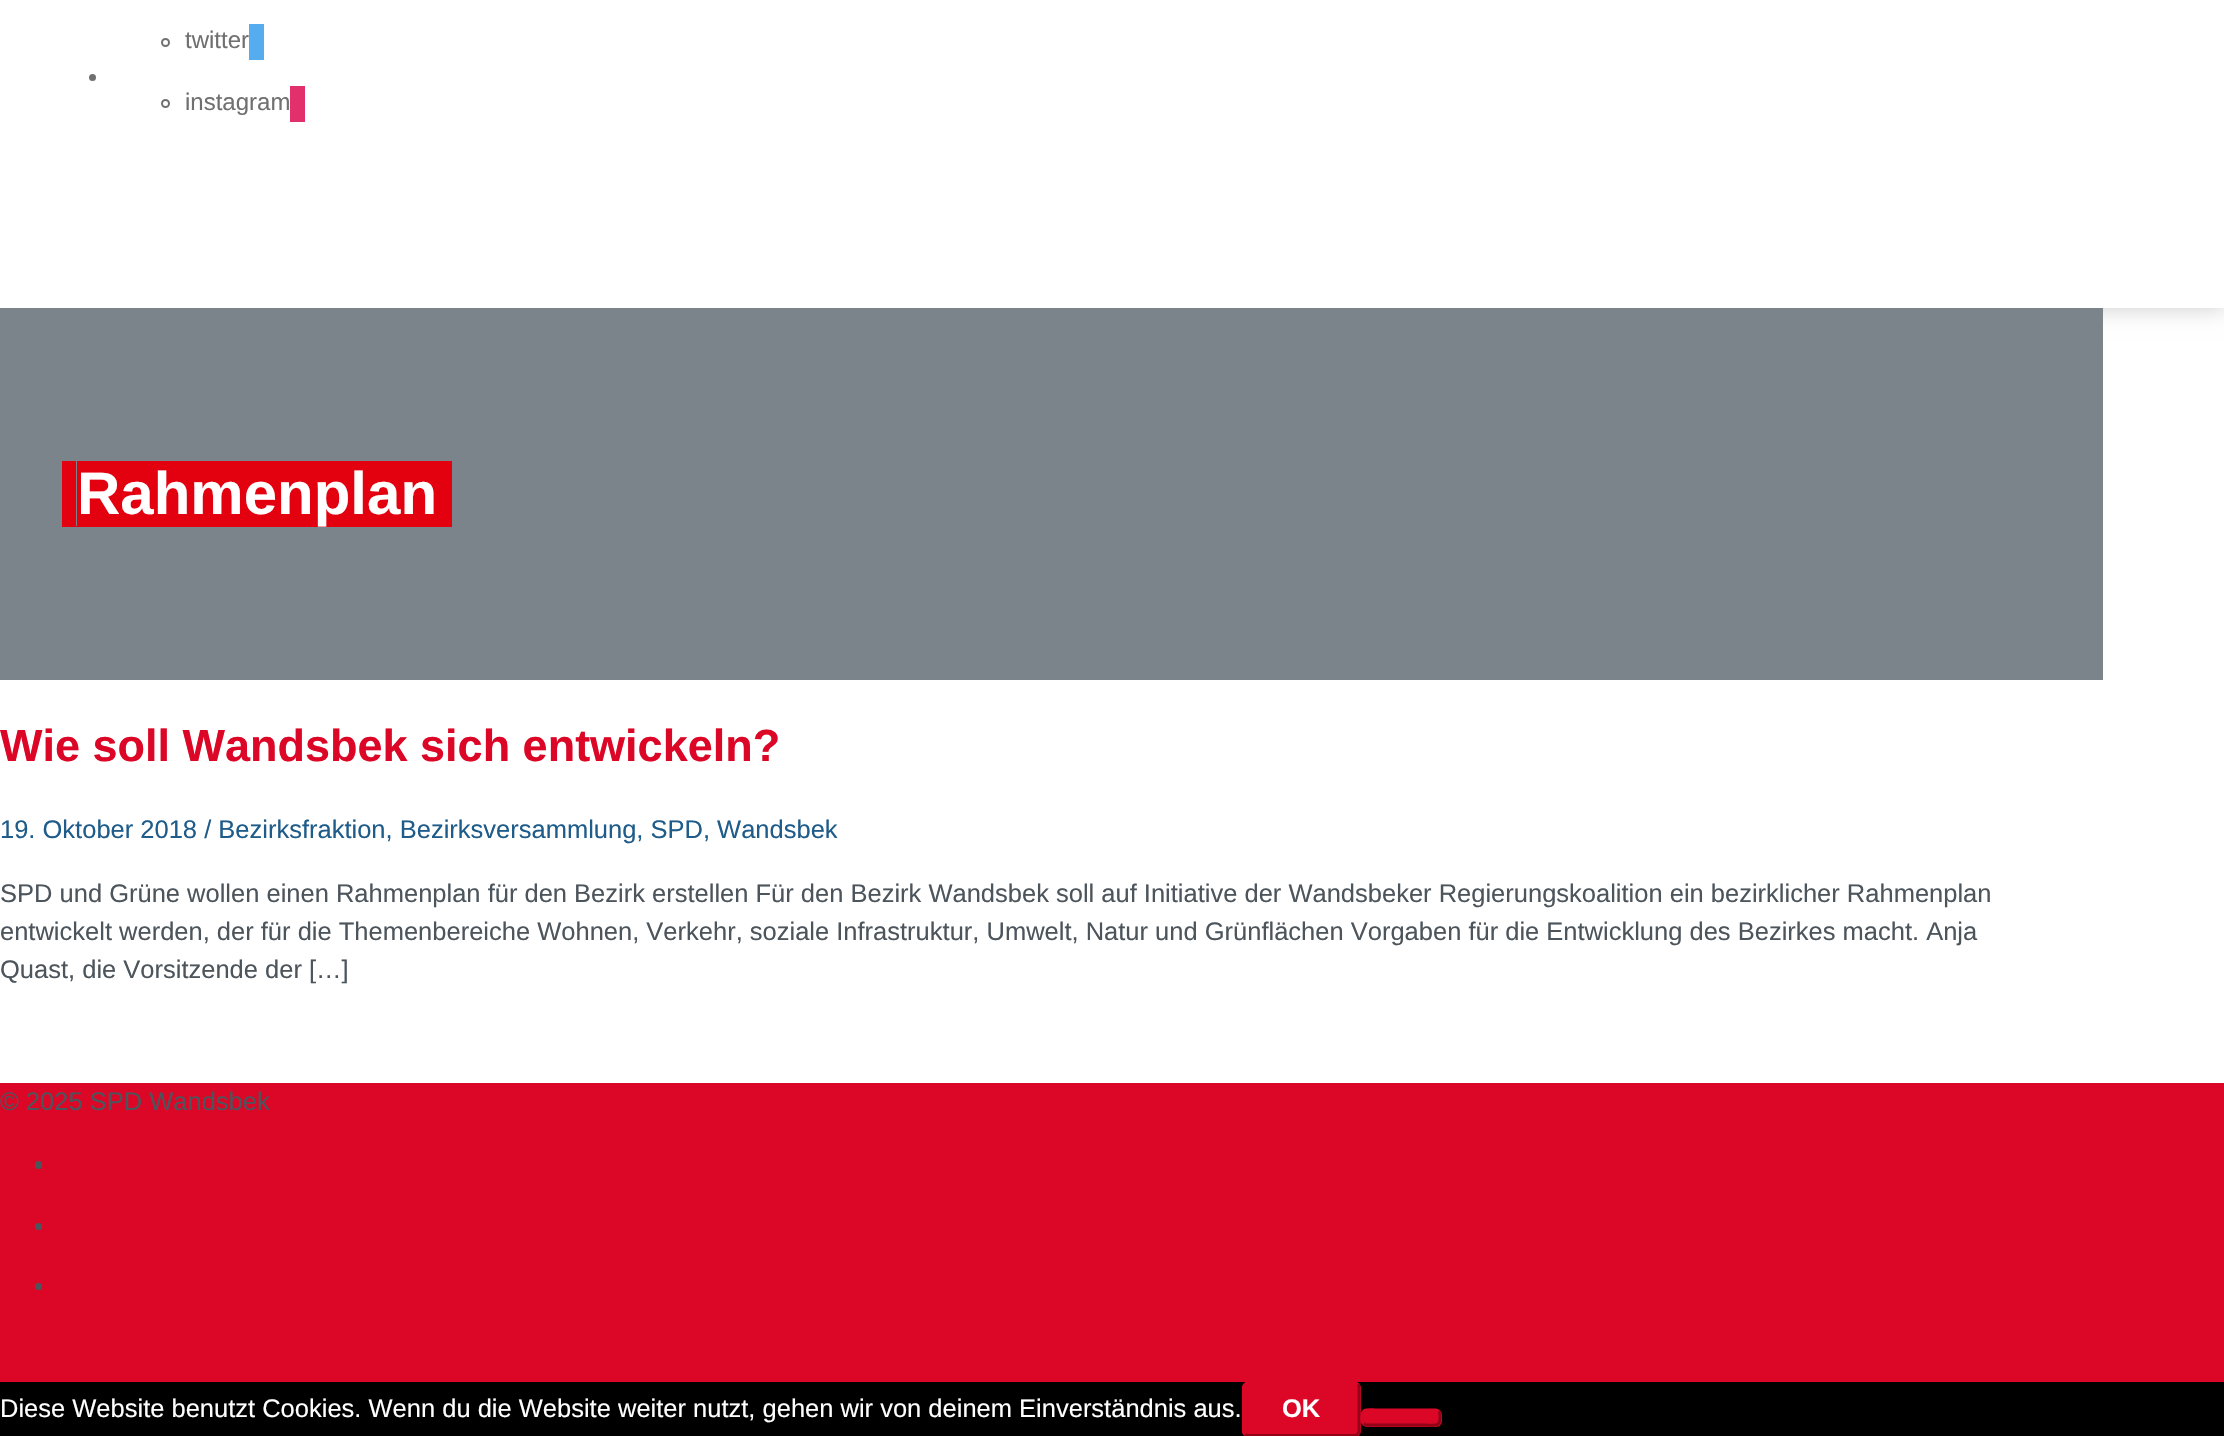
#include "include/core/SkBlurTypes.h"
#include "include/core/SkCanvas.h"
#include "include/core/SkData.h"
#include "include/core/SkFont.h"
#include "include/core/SkFontMgr.h"
#include "include/core/SkImage.h"
#include "include/core/SkMaskFilter.h"
#include "include/core/SkPaint.h"
#include "include/core/SkPathBuilder.h"
#include "include/core/SkTextBlob.h"
#include "include/effects/SkDashPathEffect.h"
#include "include/effects/SkGradientShader.h"
#include "include/utils/SkParsePath.h"

extern sk_sp<SkFontMgr> fontMgr;

static SkFont font(const char* family, int weight, float size, bool italic = false) {
    SkFontStyle style(weight, SkFontStyle::kNormal_Width,
        italic ? SkFontStyle::kItalic_Slant : SkFontStyle::kUpright_Slant);
    SkFont result(fontMgr->matchFamilyStyle(family, style), size);
    result.setSubpixel(true);
    return result;
}

static void drawLabel(SkCanvas* canvas, const char* s, float x, float y, const SkFont& font, SkColor color) {
    SkPaint ink(SkColor4f::FromColor(color));
    ink.setAntiAlias(true);
    canvas->drawString(s, x, y, font, ink);
}

static void fillRect(SkCanvas* canvas, float x, float y, float w, float h, SkColor color) {
    SkPaint ink(SkColor4f::FromColor(color));
    ink.setAntiAlias(true);
    canvas->drawRect(SkRect::MakeXYWH(x, y, w, h), ink);
}

static void fillRRect(SkCanvas* canvas, float x, float y, float w, float h, float radius, SkColor color) {
    SkPaint ink(SkColor4f::FromColor(color));
    ink.setAntiAlias(true);
    canvas->drawRoundRect(SkRect::MakeXYWH(x, y, w, h), radius, radius, ink);
}

static SkPath parsePath(const char* data, bool evenOdd = false) {
    SkPath result = *SkParsePath::FromSVGString(data);
    if (evenOdd) result.setFillType(SkPathFillType::kEvenOdd);
    return result;
}

void draw(SkCanvas* canvas) {
    SkPaint paint;
    paint.setAntiAlias(true);
    canvas->clear(0xFFFFFFFF);
    canvas->save();
    canvas->clipPath(parsePath("M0 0H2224V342H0ZM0-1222H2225V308H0Z", true), true);
    paint.setColor(0x33000000);
    paint.setMaskFilter(SkMaskFilter::MakeBlur(kNormal_SkBlurStyle, 11));
    canvas->drawRect(SkRect::MakeXYWH(0, -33, 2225, 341), paint);
    paint.setMaskFilter(nullptr);
    canvas->restore();
    paint.setColor(0xFF707070);
    canvas->drawCircle(92.5f, 77.5f, 3.5f, paint);
    paint.setStroke(true);
    paint.setStrokeWidth(2);
    canvas->drawCircle(165.5f, 42.5f, 3.5f, paint);
    SkFont font1 = font("Liberation Sans", 400, 24);
    drawLabel(canvas, "twitter", 185, 48, font1, 0xFF707070);
    fillRect(canvas, 249, 24, 15, 36, 0xFF55ACEE);
    canvas->drawCircle(165.5f, 103.5f, 3.5f, paint);
    drawLabel(canvas, "instagram", 185, 110, font1, 0xFF707070);
    fillRect(canvas, 290, 86, 15, 36, 0xFFE1306C);
    fillRect(canvas, 0, 308, 2103, 372, 0xFF7C848B);
    paint.setStroke(false);
    paint.setColor(0xFFE3000F);
    canvas->drawPath(parsePath("M62 461V527H422V526H76V461Z"), paint);
    canvas->drawPath(parsePath("M92 526V527H452V461H436V526Z"), paint);
    fillRect(canvas, 77, 461, 359, 65, 0xFFE3000F);
    SkFont font2 = font("Liberation Sans", 700, 60);
    drawLabel(canvas, "Rahmenplan", 77, 514, font2, 0xFFFFFFFF);
    SkFont font3 = font("Liberation Sans", 700, 45);
    drawLabel(canvas, "Wie soll Wandsbek sich entwickeln?", 0, 761, font3, 0xFFDC0626);
    SkFont font4 = font("Liberation Sans", 400, 25.5f);
    drawLabel(canvas, "19. Oktober 2018 / Bezirksfraktion, Bezirksversammlung, SPD, Wandsbek", 0, 838, font4, 0xFF1F5C8A);
    drawLabel(canvas, "SPD und Grüne wollen einen Rahmenplan für den Bezirk erstellen Für den Bezirk Wandsbek soll auf Initiative der Wandsbeker Regierungskoalition ein bezirklicher Rahmenplan", 0, 902, font4, 0xFF4D555C);
    drawLabel(canvas, "entwickelt werden, der für die Themenbereiche Wohnen, Verkehr, soziale Infrastruktur, Umwelt, Natur und Grünflächen Vorgaben für die Entwicklung des Bezirkes macht. Anja", 0, 940, font4, 0xFF4D555C);
    drawLabel(canvas, "Quast, die Vorsitzende der […]", 0, 978, font4, 0xFF4D555C);
    fillRect(canvas, 0, 1083, 2224, 299, 0xFFDC0626);
    drawLabel(canvas, "© 2025 SPD Wandsbek", 0, 1110, font4, 0xFF4D555C);
    fillRRect(canvas, 35, 1161, 7, 8, 3.5f, 0xFF4D555C);
    paint.setColor(0xFF4D555C);
    canvas->drawCircle(38.5f, 1226.5f, 3.5f, paint);
    canvas->drawCircle(38.5f, 1286.5f, 3.5f, paint);
    fillRect(canvas, 0, 1382, 2224, 54, 0xFF000000);
    drawLabel(canvas, "Diese Website benutzt Cookies. Wenn du die Website weiter nutzt, gehen wir von deinem Einverständnis aus.", 0, 1417, font4, 0xFFFFFFFF);
    fillRRect(canvas, 1242, 1382, 119, 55, 6, 0xFFDC0626);
    paint.setStroke(true);
    paint.setStrokeWidth(3);
    paint.setColor(0xFF930419);
    canvas->drawPath(parsePath("M1357.5 1384.5C1358.5 1385 1359 1386.5 1359 1387.5V1431C1359 1432 1358.5 1433.5 1357.5 1434C1357 1435 1355.5 1435.5 1354.5 1435.5H1248C1247 1435.5 1245.5 1435 1245 1434"), paint);
    paint.setColor(0xFFDC0626);
    canvas->drawPath(parsePath("M1245 1434C1244 1433.5 1243.5 1432 1243.5 1431V1387.5C1243.5 1386.5 1244 1385 1245 1384.5C1245.5 1383.5 1247 1383 1248 1383H1354.5C1355.5 1383 1357 1383.5 1357.5 1384.5"), paint);
    SkFont font5 = font("Liberation Sans", 700, 25.5f);
    drawLabel(canvas, "OK", 1282, 1417, font5, 0xFFFFFFFF);
    fillRRect(canvas, 1361, 1409, 81, 18, 6, 0xFFDC0626);
    paint.setColor(0xFF930419);
    canvas->drawPath(parsePath("M1438.5 1411.5C1440.5 1413 1440 1415.5 1440 1417.5C1440 1428 1434 1425 1424 1425H1366L1363.5 1423.5"), paint);
    paint.setColor(0xFFDC0626);
    canvas->drawPath(parsePath("M1363.5 1423.5C1361.5 1422 1362 1419.5 1362 1417.5C1362 1407 1368 1410 1378 1410H1436L1438.5 1411.5"), paint);
}
